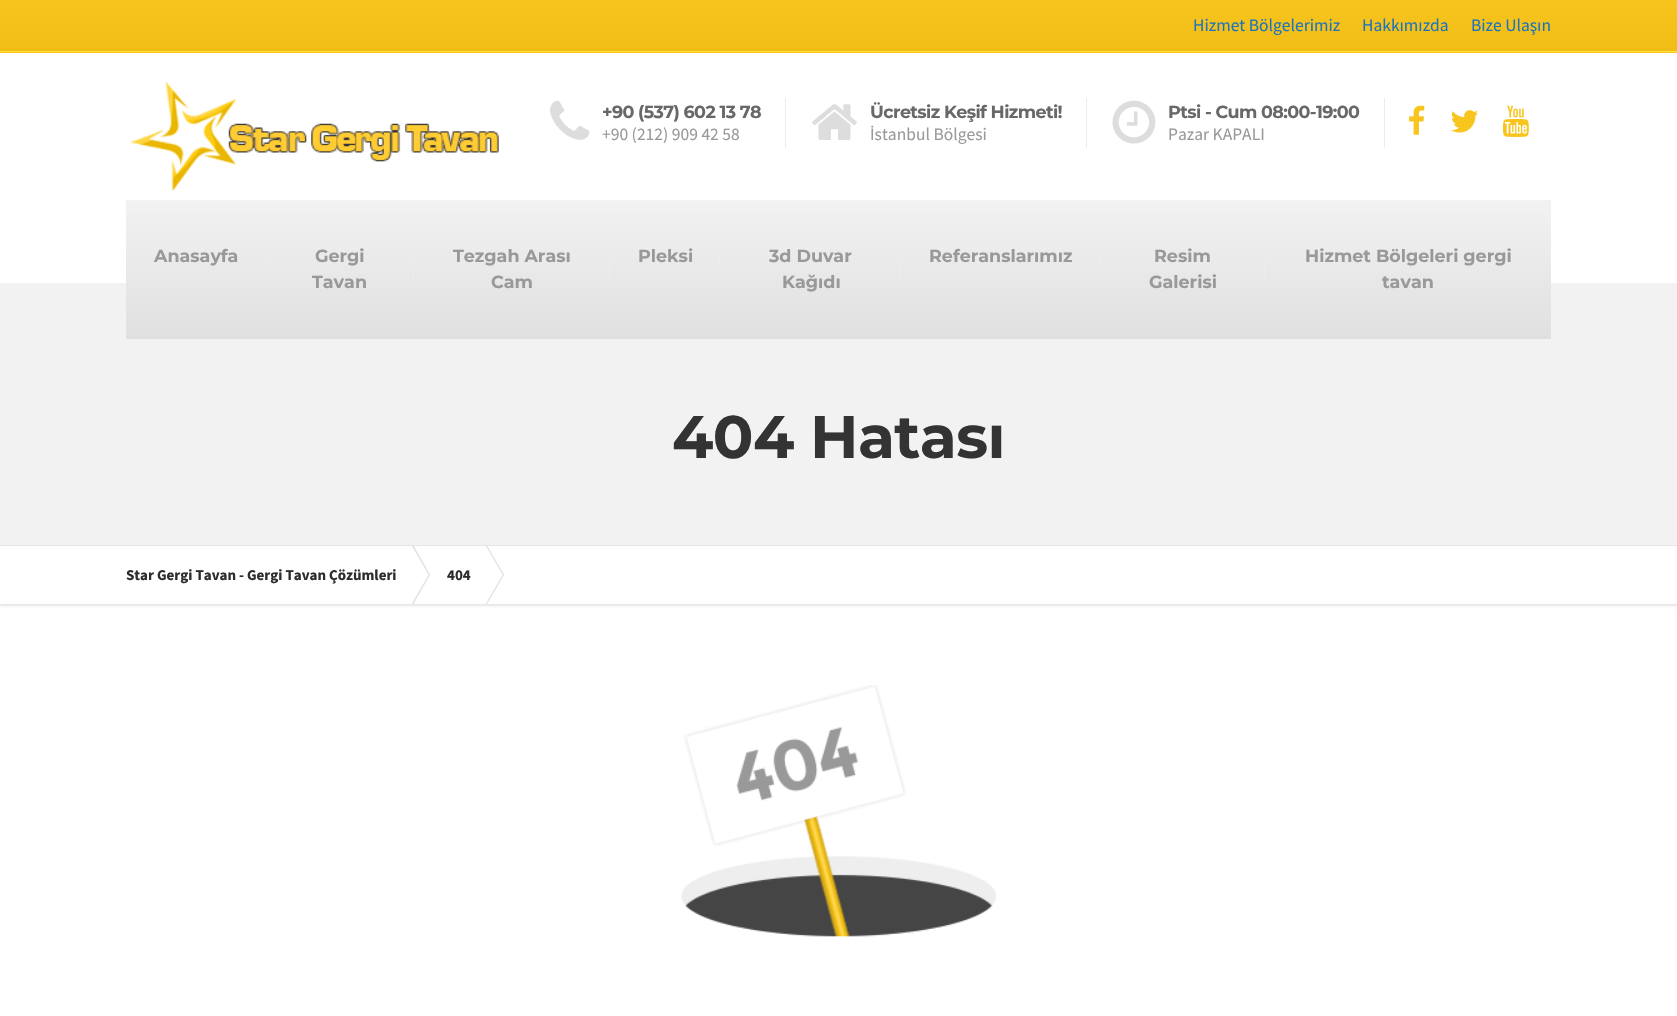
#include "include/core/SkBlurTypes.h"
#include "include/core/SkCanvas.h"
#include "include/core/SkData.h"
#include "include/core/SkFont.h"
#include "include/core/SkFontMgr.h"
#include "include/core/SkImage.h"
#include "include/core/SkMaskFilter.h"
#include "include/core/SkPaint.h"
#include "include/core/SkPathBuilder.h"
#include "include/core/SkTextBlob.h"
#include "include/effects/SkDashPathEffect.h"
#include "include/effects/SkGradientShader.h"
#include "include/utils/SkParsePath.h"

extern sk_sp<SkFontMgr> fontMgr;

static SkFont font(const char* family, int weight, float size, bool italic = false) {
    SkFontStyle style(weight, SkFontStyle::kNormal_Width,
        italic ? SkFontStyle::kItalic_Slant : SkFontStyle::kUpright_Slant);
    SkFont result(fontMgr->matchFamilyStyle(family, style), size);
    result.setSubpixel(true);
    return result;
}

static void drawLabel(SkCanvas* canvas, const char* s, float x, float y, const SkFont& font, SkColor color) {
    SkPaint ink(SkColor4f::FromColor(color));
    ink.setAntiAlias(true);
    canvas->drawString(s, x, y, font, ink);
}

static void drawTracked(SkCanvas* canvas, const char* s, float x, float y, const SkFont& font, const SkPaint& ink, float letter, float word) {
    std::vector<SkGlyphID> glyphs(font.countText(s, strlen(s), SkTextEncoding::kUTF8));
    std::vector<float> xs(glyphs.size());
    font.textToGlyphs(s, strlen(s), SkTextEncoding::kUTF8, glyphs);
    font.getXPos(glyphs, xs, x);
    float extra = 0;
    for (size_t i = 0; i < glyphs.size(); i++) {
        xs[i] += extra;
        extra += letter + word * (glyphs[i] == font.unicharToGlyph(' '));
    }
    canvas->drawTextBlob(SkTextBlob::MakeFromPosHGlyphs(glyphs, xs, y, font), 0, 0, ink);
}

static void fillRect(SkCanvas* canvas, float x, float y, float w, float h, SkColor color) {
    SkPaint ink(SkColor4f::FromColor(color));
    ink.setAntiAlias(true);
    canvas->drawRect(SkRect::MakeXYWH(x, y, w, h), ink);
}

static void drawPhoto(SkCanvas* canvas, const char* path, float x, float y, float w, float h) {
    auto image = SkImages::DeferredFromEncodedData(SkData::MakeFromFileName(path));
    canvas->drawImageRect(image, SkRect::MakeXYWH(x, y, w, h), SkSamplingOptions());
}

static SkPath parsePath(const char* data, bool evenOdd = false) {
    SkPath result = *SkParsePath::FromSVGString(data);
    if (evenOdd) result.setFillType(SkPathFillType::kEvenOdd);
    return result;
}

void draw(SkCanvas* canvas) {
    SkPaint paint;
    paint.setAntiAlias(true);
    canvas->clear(0xFFFFFFFF);
    fillRect(canvas, 0, 52, 1677, 1, 0xFFF7C51E);
    {
        const SkColor colors[] = {0xFFF7C51E, 0xFFEFBD16};
        const float stops[] = {0, 1};
        const SkPoint ends[] = {{839, 0}, {839, 51}};
        paint.setShader(SkGradientShader::MakeLinear(ends, colors, stops, 2, SkTileMode::kClamp));
        paint.setAlpha(255);
    }
    canvas->drawRect(SkRect::MakeXYWH(0, 0, 1677, 51), paint);
    fillRect(canvas, 0, 51, 1677, 1, 0xFFFFDF38);
    SkFont font1 = font("Source Sans Pro", 400, 17.5f);
    drawLabel(canvas, "Hizmet Bölgelerimiz", 1193, 31, font1, 0xFF1E73BE);
    drawLabel(canvas, "Hakkımızda", 1362, 31, font1, 0xFF1E73BE);
    drawLabel(canvas, "Bize Ulaşın", 1471, 31, font1, 0xFF1E73BE);
    drawPhoto(canvas, "assets/img1.png", 130, 81, 369, 111);
    fillRect(canvas, 785, 98, 1, 50, 0xFFEBEBEB);
    drawPhoto(canvas, "assets/img2.png", 550, 100, 40, 40);
    SkFont font2 = font("Montserrat", 100, 17.5f);
    paint.setShader(nullptr);
    paint.setColor(0xFF686868);
    drawTracked(canvas, "+90 (537) 602 13 78", 602, 118, font2, paint, -0.6f, 0);
    drawLabel(canvas, "+90 (212) 909 42 58", 602, 140, font1, 0xFF999999);
    fillRect(canvas, 1086, 98, 1, 50, 0xFFEBEBEB);
    drawPhoto(canvas, "assets/img3.png", 812, 104, 45, 36);
    drawTracked(canvas, "Ücretsiz Keşif Hizmeti!", 870, 118, font2, paint, -0.6f, 0);
    drawLabel(canvas, "İstanbul Bölgesi", 870, 140, font1, 0xFF999999);
    fillRect(canvas, 1384, 98, 1, 50, 0xFFEBEBEB);
    drawPhoto(canvas, "assets/img4.png", 1112, 100, 44, 44);
    drawTracked(canvas, "Ptsi - Cum 08:00-19:00", 1168, 118, font2, paint, -0.6f, 0);
    drawLabel(canvas, "Pazar KAPALI", 1168, 140, font1, 0xFF999999);
    drawPhoto(canvas, "assets/img5.png", 1409, 105, 16, 30);
    drawPhoto(canvas, "assets/img6.png", 1451, 110, 27, 23);
    drawPhoto(canvas, "assets/img7.png", 1503, 105, 26, 32);
    fillRect(canvas, 0, 283, 1677, 262, 0xFFF2F2F2);
    {
        const SkColor colors[] = {0xFFF2F2F2, 0xFFE0E0E0};
        const float stops[] = {0, 1};
        const SkPoint ends[] = {{839, 200}, {839, 339}};
        paint.setShader(SkGradientShader::MakeLinear(ends, colors, stops, 2, SkTileMode::kClamp));
        paint.setAlpha(255);
    }
    canvas->drawRect(SkRect::MakeXYWH(126, 200, 1425, 139), paint);
    drawLabel(canvas, "Anasayfa", 154, 262, font2, 0xFF999999);
    fillRect(canvas, 265, 258, 1, 7, 0xFFEDEDED);
    drawLabel(canvas, "Gergi", 315, 262, font2, 0xFF999999);
    fillRect(canvas, 413, 260, 1, 19, 0xFFECECEC);
    drawLabel(canvas, "Tavan", 312, 288, font2, 0xFF999999);
    drawLabel(canvas, "Tezgah Arası", 453, 262, font2, 0xFF999999);
    fillRect(canvas, 609, 260, 1, 19, 0xFFECECEC);
    drawLabel(canvas, "Cam", 491, 288, font2, 0xFF999999);
    drawLabel(canvas, "Pleksi", 638, 262, font2, 0xFF999999);
    fillRect(canvas, 719, 258, 1, 7, 0xFFEDEDED);
    drawLabel(canvas, "3d Duvar", 769, 262, font2, 0xFF999999);
    fillRect(canvas, 900, 260, 1, 19, 0xFFECECEC);
    drawLabel(canvas, "Kağıdı", 782, 288, font2, 0xFF999999);
    drawLabel(canvas, "Referanslarımız", 929, 262, font2, 0xFF999999);
    fillRect(canvas, 1099, 258, 1, 7, 0xFFEDEDED);
    drawLabel(canvas, "Resim", 1154, 262, font2, 0xFF999999);
    fillRect(canvas, 1264, 260, 1, 19, 0xFFECECEC);
    drawLabel(canvas, "Galerisi", 1149, 288, font2, 0xFF999999);
    drawLabel(canvas, "Hizmet Bölgeleri gergi", 1305, 262, font2, 0xFF999999);
    drawLabel(canvas, "tavan", 1382, 288, font2, 0xFF999999);
    fillRect(canvas, 0, 545, 1677, 1, 0xFFE6E6E6);
    SkFont font3 = font("Montserrat", 100, 60);
    paint.setShader(nullptr);
    paint.setColor(0xFF333333);
    drawTracked(canvas, "404 Hatası", 672, 458, font3, paint, -0.6f, 0);
    paint.setColor(0xFFE6E6E6);
    paint.setMaskFilter(SkMaskFilter::MakeBlur(kNormal_SkBlurStyle, 1));
    canvas->drawRect(SkRect::MakeXYWH(0, 549, 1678, 57), paint);
    paint.setMaskFilter(nullptr);
    fillRect(canvas, 0, 548, 1677, 56, 0xFFFFFFFF);
    SkFont font4 = font("Source Sans Pro", 700, 15);
    drawLabel(canvas, "Star Gergi Tavan - Gergi Tavan Çözümleri", 126, 580, font4, 0xFF2D2D2D);
    paint.setColor(0xFFE2E2E2);
    canvas->drawPath(parsePath("M412 546L413.5 545.5L430 574.5L429 575.5Z"), paint);
    canvas->drawPath(parsePath("M429 574L430 575L413.5 604L412 603.5Z"), paint);
    drawLabel(canvas, "404", 447, 580, font4, 0xFF2D2D2D);
    canvas->drawPath(parsePath("M486 546L487 545.5L504 574.5L503 575.5Z"), paint);
    canvas->drawPath(parsePath("M503 574L504 575L487 604L486 603.5Z"), paint);
    drawPhoto(canvas, "assets/img8.png", 681, 685, 316, 252);
}
